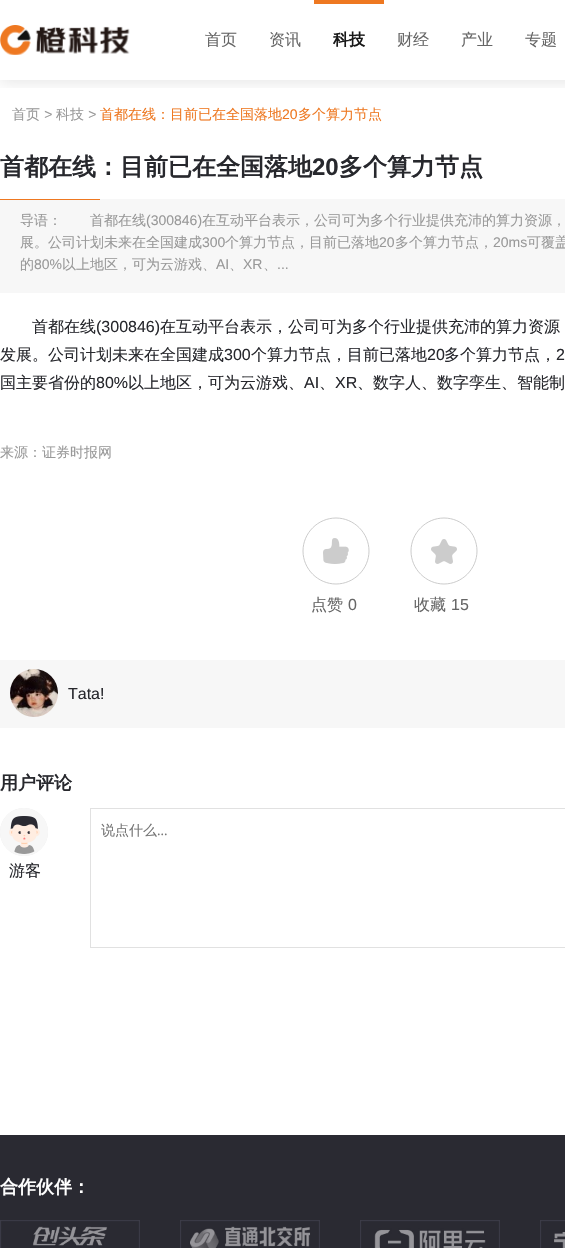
#include "include/core/SkBlurTypes.h"
#include "include/core/SkCanvas.h"
#include "include/core/SkData.h"
#include "include/core/SkFont.h"
#include "include/core/SkFontMgr.h"
#include "include/core/SkImage.h"
#include "include/core/SkMaskFilter.h"
#include "include/core/SkPaint.h"
#include "include/core/SkPathBuilder.h"
#include "include/core/SkTextBlob.h"
#include "include/effects/SkDashPathEffect.h"
#include "include/effects/SkGradientShader.h"
#include "include/utils/SkParsePath.h"

extern sk_sp<SkFontMgr> fontMgr;

static SkFont font(const char* family, int weight, float size, bool italic = false) {
    SkFontStyle style(weight, SkFontStyle::kNormal_Width,
        italic ? SkFontStyle::kItalic_Slant : SkFontStyle::kUpright_Slant);
    SkFont result(fontMgr->matchFamilyStyle(family, style), size);
    result.setSubpixel(true);
    return result;
}

static void drawLabel(SkCanvas* canvas, const char* s, float x, float y, const SkFont& font, SkColor color) {
    SkPaint ink(SkColor4f::FromColor(color));
    ink.setAntiAlias(true);
    canvas->drawString(s, x, y, font, ink);
}

static void fillRect(SkCanvas* canvas, float x, float y, float w, float h, SkColor color) {
    SkPaint ink(SkColor4f::FromColor(color));
    ink.setAntiAlias(true);
    canvas->drawRect(SkRect::MakeXYWH(x, y, w, h), ink);
}

static void drawPhoto(SkCanvas* canvas, const char* path, float x, float y, float w, float h) {
    auto image = SkImages::DeferredFromEncodedData(SkData::MakeFromFileName(path));
    canvas->drawImageRect(image, SkRect::MakeXYWH(x, y, w, h), SkSamplingOptions());
}

static SkPath parsePath(const char* data, bool evenOdd = false) {
    SkPath result = *SkParsePath::FromSVGString(data);
    if (evenOdd) result.setFillType(SkPathFillType::kEvenOdd);
    return result;
}

void draw(SkCanvas* canvas) {
    SkPaint paint;
    paint.setAntiAlias(true);
    canvas->clear(0xFFFFFFFF);
    canvas->save();
    canvas->clipRect(SkRect::MakeXYWH(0, 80, 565, 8));
    paint.setColor(0x1A000000);
    paint.setMaskFilter(SkMaskFilter::MakeBlur(kNormal_SkBlurStyle, 7.5f));
    canvas->drawRect(SkRect::MakeXYWH(0, 2, 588, 80), paint);
    paint.setMaskFilter(nullptr);
    canvas->restore();
    drawPhoto(canvas, "assets/img1.png", 0, 25, 130, 30);
    SkFont font1 = font("WenQuanYi Zen Hei", 500, 16);
    drawLabel(canvas, "首页", 205, 45, font1, 0xFF666666);
    drawLabel(canvas, "资讯", 269, 45, font1, 0xFF666666);
    fillRect(canvas, 314, 0, 70, 4, 0xFFEE7821);
    SkFont font2 = font("WenQuanYi Zen Hei", 700, 16);
    drawLabel(canvas, "科技", 333, 45, font2, 0xFF181818);
    drawLabel(canvas, "财经", 397, 45, font1, 0xFF666666);
    drawLabel(canvas, "产业", 461, 45, font1, 0xFF666666);
    drawLabel(canvas, "专题", 525, 45, font1, 0xFF666666);
    SkFont font3 = font("WenQuanYi Zen Hei", 500, 14);
    drawLabel(canvas, "首页", 12, 119, font3, 0xFF999999);
    SkFont font4 = font("Liberation Sans", 400, 14, true);
    drawLabel(canvas, ">", 44, 119, font4, 0xFF999999);
    drawLabel(canvas, "科技", 56, 119, font3, 0xFF999999);
    drawLabel(canvas, ">", 88, 119, font4, 0xFF999999);
    drawLabel(canvas, "首都在线：目前已在全国落地", 100, 119, font3, 0xFFEE7821);
    SkFont font5 = font("Liberation Sans", 400, 14);
    drawLabel(canvas, "20", 282, 119, font5, 0xFFEE7821);
    drawLabel(canvas, "多个算力节点", 298, 119, font3, 0xFFEE7821);
    SkFont font6 = font("WenQuanYi Zen Hei", 700, 24);
    drawLabel(canvas, "首都在线：目前已在全国落地", 0, 175, font6, 0xFF27282D);
    SkFont font7 = font("Liberation Sans", 700, 24);
    drawLabel(canvas, "20", 312, 175, font7, 0xFF27282D);
    drawLabel(canvas, "多个算力节点", 339, 175, font6, 0xFF27282D);
    fillRect(canvas, 0, 199, 565, 94, 0xFFF7F7F7);
    fillRect(canvas, 0, 199, 100, 1, 0xFFEE7821);
    drawLabel(canvas, "导语：　　首都在线", 20, 225, font3, 0xFF999999);
    drawLabel(canvas, "(300846)", 146, 225, font5, 0xFF999999);
    drawLabel(canvas, "在互动平台表示，公司可为多个行业提供充沛的算力资源，", 202, 225, font3, 0xFF999999);
    drawLabel(canvas, "展。公司计划未来在全国建成", 20, 247, font3, 0xFF999999);
    drawLabel(canvas, "300", 202, 247, font5, 0xFF999999);
    drawLabel(canvas, "个算力节点，目前已落地", 225, 247, font3, 0xFF999999);
    drawLabel(canvas, "20", 379, 247, font5, 0xFF999999);
    drawLabel(canvas, "多个算力节点，", 395, 247, font3, 0xFF999999);
    drawLabel(canvas, "20ms", 493, 247, font5, 0xFF999999);
    drawLabel(canvas, "可覆盖", 527, 247, font3, 0xFF999999);
    drawLabel(canvas, "的", 20, 269, font3, 0xFF999999);
    drawLabel(canvas, "80%", 34, 269, font5, 0xFF999999);
    drawLabel(canvas, "以上地区，可为云游戏、", 62, 269, font3, 0xFF999999);
    drawLabel(canvas, "AI", 216, 269, font5, 0xFF999999);
    drawLabel(canvas, "、", 229, 269, font3, 0xFF999999);
    drawLabel(canvas, "XR", 243, 269, font5, 0xFF999999);
    drawLabel(canvas, "、", 263, 269, font3, 0xFF999999);
    drawLabel(canvas, "...", 277, 269, font5, 0xFF999999);
    drawLabel(canvas, "首都在线", 32, 332, font1, 0xFF27282D);
    SkFont font8 = font("Liberation Sans", 400, 16);
    drawLabel(canvas, "(300846)", 96, 332, font8, 0xFF27282D);
    drawLabel(canvas, "在互动平台表示，公司可为多个行业提供充沛的算力资源", 160, 332, font1, 0xFF27282D);
    drawLabel(canvas, "发展。公司计划未来在全国建成", 0, 360, font1, 0xFF27282D);
    drawLabel(canvas, "300", 224, 360, font8, 0xFF27282D);
    drawLabel(canvas, "个算力节点，目前已落地", 251, 360, font1, 0xFF27282D);
    drawLabel(canvas, "20", 427, 360, font8, 0xFF27282D);
    drawLabel(canvas, "多个算力节点，", 444, 360, font1, 0xFF27282D);
    drawLabel(canvas, "2", 556, 360, font8, 0xFF27282D);
    drawLabel(canvas, "国主要省份的", 0, 388, font1, 0xFF27282D);
    drawLabel(canvas, "80%", 96, 388, font8, 0xFF27282D);
    drawLabel(canvas, "以上地区，可为云游戏、", 128, 388, font1, 0xFF27282D);
    drawLabel(canvas, "AI", 304, 388, font8, 0xFF27282D);
    drawLabel(canvas, "、", 319, 388, font1, 0xFF27282D);
    drawLabel(canvas, "XR", 335, 388, font8, 0xFF27282D);
    drawLabel(canvas, "、数字人、数字孪生、智能制", 357, 388, font1, 0xFF27282D);
    drawLabel(canvas, "来源：证券时报网", 0, 457, font3, 0xFF999999);
    drawPhoto(canvas, "assets/img2.png", 323, 538, 26, 26);
    paint.setStroke(true);
    paint.setStrokeWidth(1);
    paint.setColor(0xFFCCCCCC);
    canvas->drawPath(parsePath("M303 551C303 533 318 518 336 518C354 518 369 533 369 551C369 569 354 584 336 584C318 584 303 569 303 551Z"), paint);
    drawLabel(canvas, "点赞", 311, 610, font1, 0xFF666666);
    drawLabel(canvas, "0", 348, 610, font8, 0xFF666666);
    drawPhoto(canvas, "assets/img3.png", 431, 539, 26, 25);
    canvas->drawPath(parsePath("M411 551C411 533 426 518 444 518C462 518 477 533 477 551C477 569 462 584 444 584C426 584 411 569 411 551Z"), paint);
    drawLabel(canvas, "收藏", 414, 610, font1, 0xFF666666);
    drawLabel(canvas, "15", 451, 610, font8, 0xFF666666);
    fillRect(canvas, 0, 660, 565, 68, 0xFFF7F7F7);
    drawPhoto(canvas, "assets/img4.png", 10, 669, 48, 48);
    drawLabel(canvas, "Tata!", 68, 699, font8, 0xFF27282D);
    SkFont font9 = font("WenQuanYi Zen Hei", 700, 18);
    drawLabel(canvas, "用户评论", 0, 789, font9, 0xFF27282D);
    paint.setColor(0xFFE1E1E1);
    canvas->drawRect(SkRect::MakeXYWH(90.5f, 808.5f, 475, 139), paint);
    drawLabel(canvas, "说点什么", 101, 835, font3, 0xFF757575);
    SkFont font10 = font("Liberation Serif", 400, 14);
    drawLabel(canvas, "...", 157, 835, font10, 0xFF757575);
    paint.setStroke(false);
    paint.setColor(0xFFEEEEEE);
    canvas->drawCircle(24, 832, 24, paint);
    drawPhoto(canvas, "assets/img5.png", 0, 808, 48, 48);
    drawLabel(canvas, "游客", 9, 876, font1, 0xFF27282D);
    fillRect(canvas, 0, 1135, 565, 113, 0xFF2A2A32);
    drawLabel(canvas, "合作伙伴：", 0, 1193, font9, 0xFFFFFFFF);
    drawPhoto(canvas, "assets/img6.png", 0, 1220, 140, 28);
    drawPhoto(canvas, "assets/img7.png", 180, 1220, 140, 28);
    drawPhoto(canvas, "assets/img8.png", 360, 1220, 140, 28);
    drawPhoto(canvas, "assets/img9.png", 540, 1220, 25, 28);
}
